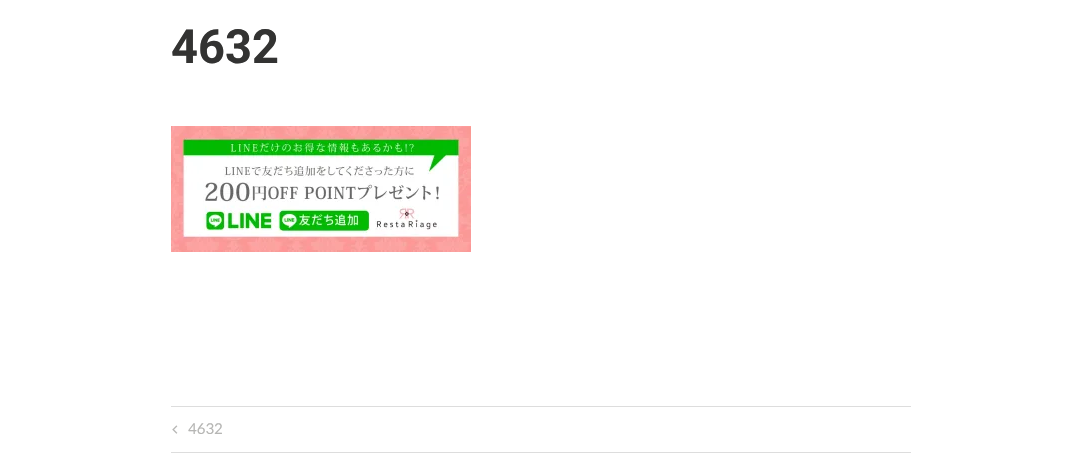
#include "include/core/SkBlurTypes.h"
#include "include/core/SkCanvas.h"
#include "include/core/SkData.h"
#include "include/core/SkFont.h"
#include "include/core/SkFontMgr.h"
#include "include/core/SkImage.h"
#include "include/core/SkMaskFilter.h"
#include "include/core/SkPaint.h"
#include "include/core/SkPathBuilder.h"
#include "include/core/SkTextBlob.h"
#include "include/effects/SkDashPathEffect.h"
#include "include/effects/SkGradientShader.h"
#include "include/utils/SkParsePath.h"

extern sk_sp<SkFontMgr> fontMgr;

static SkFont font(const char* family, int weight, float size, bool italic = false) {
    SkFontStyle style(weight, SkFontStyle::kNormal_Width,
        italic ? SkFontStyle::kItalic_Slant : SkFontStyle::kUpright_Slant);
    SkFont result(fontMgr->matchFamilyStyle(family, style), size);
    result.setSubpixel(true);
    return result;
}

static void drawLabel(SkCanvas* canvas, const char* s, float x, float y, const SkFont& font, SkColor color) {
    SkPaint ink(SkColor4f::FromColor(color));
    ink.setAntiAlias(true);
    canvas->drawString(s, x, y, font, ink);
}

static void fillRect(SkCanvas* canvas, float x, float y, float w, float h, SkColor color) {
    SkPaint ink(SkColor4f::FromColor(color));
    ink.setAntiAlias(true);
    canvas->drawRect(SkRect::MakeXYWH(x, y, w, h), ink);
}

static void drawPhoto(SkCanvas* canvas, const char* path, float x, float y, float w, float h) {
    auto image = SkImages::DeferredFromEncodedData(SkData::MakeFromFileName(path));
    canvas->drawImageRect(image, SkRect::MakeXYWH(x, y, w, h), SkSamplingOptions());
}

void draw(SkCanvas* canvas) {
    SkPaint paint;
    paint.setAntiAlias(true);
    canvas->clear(0xFFFFFFFF);
    SkFont font1 = font("Roboto", 700, 47);
    drawLabel(canvas, "4632", 171, 63, font1, 0xFF333332);
    drawPhoto(canvas, "assets/img1.png", 171, 126, 300, 126);
    fillRect(canvas, 171, 406, 740, 1, 0xFFDDDDDD);
    fillRect(canvas, 171, 452, 740, 1, 0xFFDDDDDD);
    drawPhoto(canvas, "assets/img2.png", 172, 425, 6, 9);
    SkFont font2 = font("Lato", 400, 15);
    drawLabel(canvas, "4632", 188, 434, font2, 0xFFB6B6B4);
}
